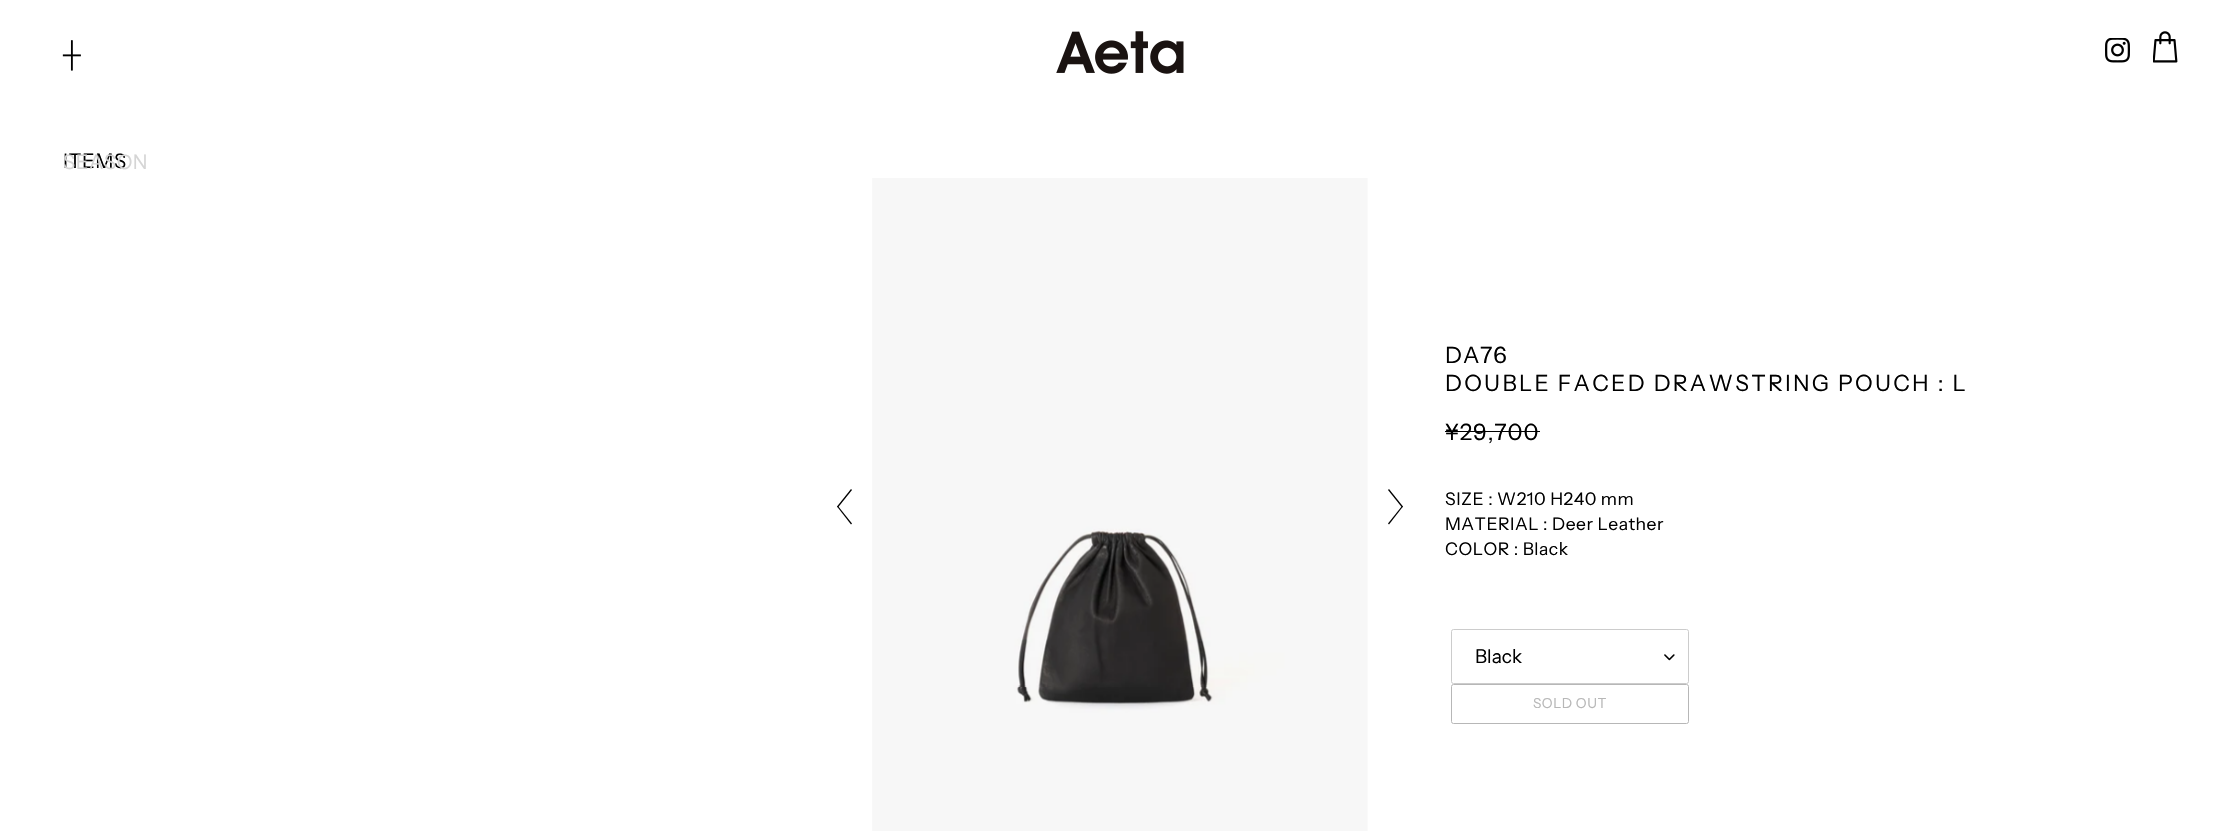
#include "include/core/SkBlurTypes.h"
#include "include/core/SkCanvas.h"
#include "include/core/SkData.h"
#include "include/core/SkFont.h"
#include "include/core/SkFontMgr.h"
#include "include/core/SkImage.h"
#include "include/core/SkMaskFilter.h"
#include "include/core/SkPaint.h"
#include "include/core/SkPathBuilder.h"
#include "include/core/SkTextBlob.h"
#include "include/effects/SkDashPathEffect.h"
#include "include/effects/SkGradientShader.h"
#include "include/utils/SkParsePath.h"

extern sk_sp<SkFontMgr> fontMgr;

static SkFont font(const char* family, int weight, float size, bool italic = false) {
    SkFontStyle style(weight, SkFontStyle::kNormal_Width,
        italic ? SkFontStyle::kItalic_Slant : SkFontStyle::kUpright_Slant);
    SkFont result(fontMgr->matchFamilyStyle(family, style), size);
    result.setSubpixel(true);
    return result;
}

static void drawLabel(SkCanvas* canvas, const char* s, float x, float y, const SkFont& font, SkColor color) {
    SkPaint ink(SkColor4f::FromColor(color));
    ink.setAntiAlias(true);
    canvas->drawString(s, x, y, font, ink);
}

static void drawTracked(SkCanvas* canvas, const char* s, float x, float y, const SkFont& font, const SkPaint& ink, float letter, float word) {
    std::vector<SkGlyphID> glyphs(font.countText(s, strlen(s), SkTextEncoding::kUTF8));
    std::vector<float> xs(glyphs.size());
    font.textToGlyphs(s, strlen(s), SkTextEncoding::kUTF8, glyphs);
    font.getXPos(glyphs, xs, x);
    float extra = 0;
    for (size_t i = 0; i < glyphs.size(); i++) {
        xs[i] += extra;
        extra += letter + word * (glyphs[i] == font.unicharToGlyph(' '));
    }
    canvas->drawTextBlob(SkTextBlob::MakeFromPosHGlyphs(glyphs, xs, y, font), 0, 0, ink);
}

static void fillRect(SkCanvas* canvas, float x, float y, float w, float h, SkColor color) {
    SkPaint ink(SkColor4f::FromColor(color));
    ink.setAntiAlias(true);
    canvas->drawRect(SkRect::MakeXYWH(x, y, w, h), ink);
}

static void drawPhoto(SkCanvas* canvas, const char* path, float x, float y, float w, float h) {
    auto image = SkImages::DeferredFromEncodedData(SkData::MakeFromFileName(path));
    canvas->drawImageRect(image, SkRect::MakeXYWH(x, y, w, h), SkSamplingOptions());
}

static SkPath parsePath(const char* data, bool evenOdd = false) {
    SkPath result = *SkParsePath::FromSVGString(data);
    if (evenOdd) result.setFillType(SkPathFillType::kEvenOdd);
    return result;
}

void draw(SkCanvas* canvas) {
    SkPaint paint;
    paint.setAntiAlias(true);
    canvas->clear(0xFFFFFFFF);
    SkFont font1 = font("Liberation Sans", 400, 25);
    drawLabel(canvas, "┼", 63, 63, font1, 0xFF000000);
    drawPhoto(canvas, "assets/img1.png", 1056, 31, 128, 43);
    drawPhoto(canvas, "assets/img2.png", 2105, 38, 25, 25);
    drawPhoto(canvas, "assets/img3.png", 2153, 31, 25, 32);
    SkFont font2 = font("Instrument Sans", 400, 20);
    paint.setColor(0xFF000000);
    drawTracked(canvas, "ITEMS", 63, 168, font2, paint, 0.5f, 0);
    paint.setColor(0xFFD5D5D5);
    drawTracked(canvas, "SEASON", 63, 169, font2, paint, 0.5f, 0);
    paint.setColor(0xFF000000);
    canvas->drawPath(parsePath("M838 506L852 523.5L851 524.5L837 506.5Z"), paint);
    canvas->drawPath(parsePath("M851 489L852 490L838 507.5L837 506.5Z"), paint);
    drawPhoto(canvas, "assets/img4.png", 872, 178, 496, 653);
    canvas->drawPath(parsePath("M1402 507.5L1388 490L1389 489L1403 506.5Z"), paint);
    canvas->drawPath(parsePath("M1389 524.5L1388 523.5L1402 506L1403 506.5Z"), paint);
    SkFont font3 = font("Instrument Sans", 400, 22.5f);
    drawTracked(canvas, "DA76", 1445, 363, font3, paint, 1, 0);
    drawTracked(canvas, "DOUBLE FACED DRAWSTRING POUCH : L", 1445, 391, font3, paint, 2.25f, 0);
    drawTracked(canvas, "¥29,700", 1445, 440, font3, paint, 1, 0);
    fillRect(canvas, 1445, 431, 95, 1, 0xFF000000);
    SkFont font4 = font("Instrument Sans", 400, 17.5f);
    drawTracked(canvas, "SIZE : W210 H240 mm", 1445, 505, font4, paint, 0.5f, 0);
    drawTracked(canvas, "MATERIAL : Deer Leather", 1445, 530, font4, paint, 0.5f, 0);
    drawTracked(canvas, "COLOR : Black", 1445, 555, font4, paint, 0.5f, 0);
    drawPhoto(canvas, "assets/img5.png", 1664, 654, 11, 7);
    paint.setStroke(true);
    paint.setStrokeWidth(1);
    paint.setColor(0xFFCCCCCC);
    canvas->drawRoundRect(SkRect::MakeXYWH(1451.5f, 629.5f, 237, 54), 2, 2, paint);
    SkFont font5 = font("Instrument Sans", 400, 19);
    drawLabel(canvas, "Black", 1475, 663, font5, 0xFF000000);
    paint.setColor(0xFFB7B7B7);
    canvas->drawRoundRect(SkRect::MakeXYWH(1451.5f, 684.5f, 237, 39), 2, 2, paint);
    SkFont font6 = font("Instrument Sans", 400, 13.75f);
    paint.setStroke(false);
    drawTracked(canvas, "SOLD OUT", 1533, 708, font6, paint, 0.5f, 0);
}
